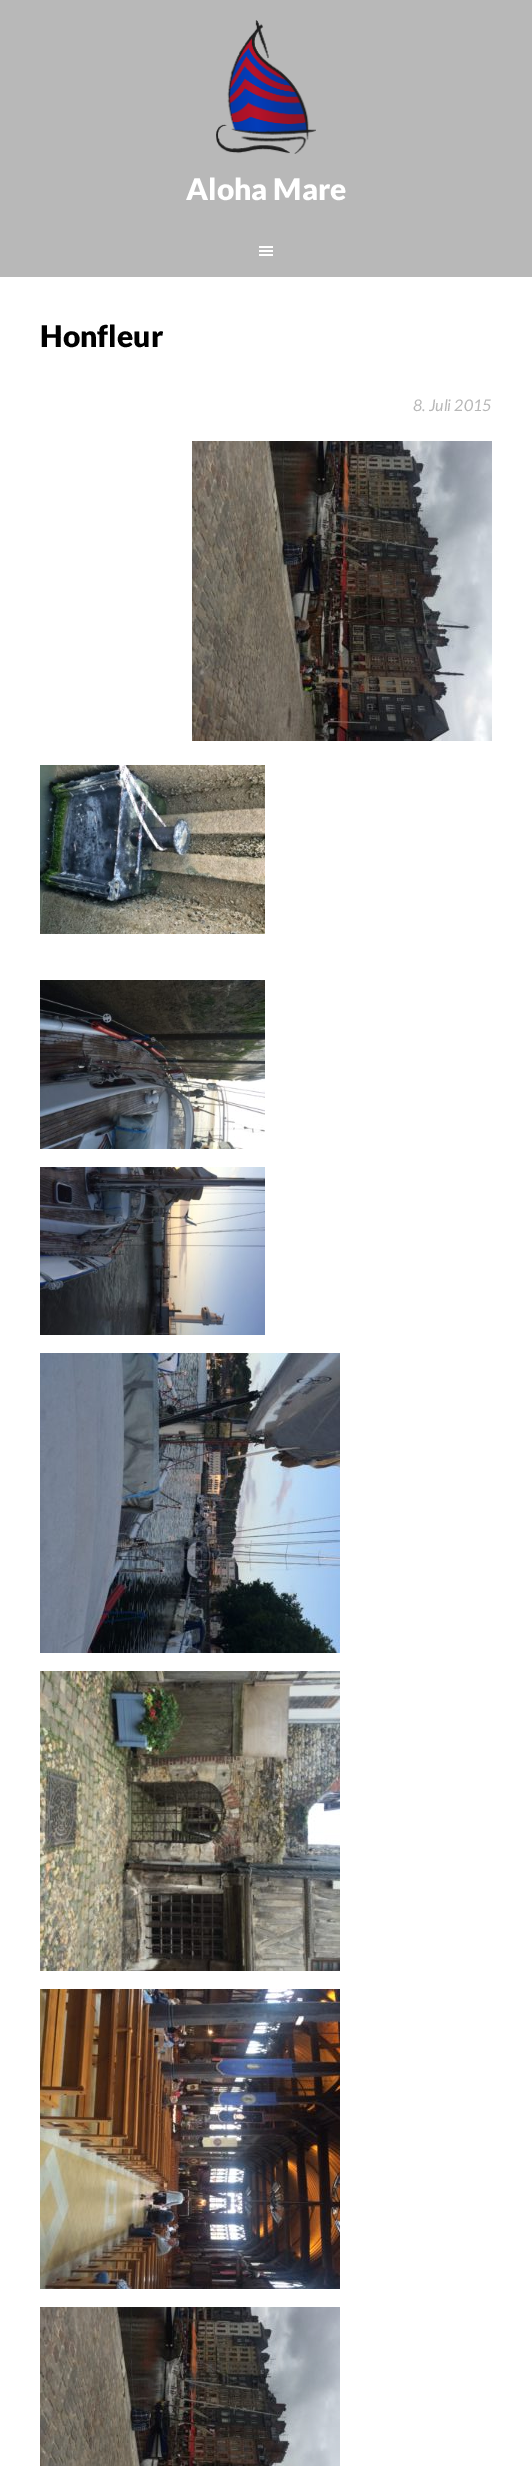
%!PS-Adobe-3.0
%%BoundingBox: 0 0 532 2466
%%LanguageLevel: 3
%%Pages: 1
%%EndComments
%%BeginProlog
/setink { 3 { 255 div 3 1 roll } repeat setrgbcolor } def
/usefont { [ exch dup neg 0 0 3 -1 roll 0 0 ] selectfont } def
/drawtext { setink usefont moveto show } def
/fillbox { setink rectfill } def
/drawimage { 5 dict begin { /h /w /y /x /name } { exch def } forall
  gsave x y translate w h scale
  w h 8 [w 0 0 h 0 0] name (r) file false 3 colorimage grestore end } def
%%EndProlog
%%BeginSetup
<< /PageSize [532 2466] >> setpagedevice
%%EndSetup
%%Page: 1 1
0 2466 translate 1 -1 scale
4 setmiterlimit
0 0 532 2466 255 255 255 fillbox
0 0 532 277 184 184 184 fillbox
(assets/img1.rgb) 216 20 100 134 drawimage
(Aloha Mare) 186 200 /Lato-Black 30 255 255 255 drawtext
(assets/img2.rgb) 259 246 14 10 drawimage
(Honfleur) 40 347 /Lato-Black 30 0 0 0 drawtext
(8. Juli 2015) 413 411 /Lato-Italic 16 184 184 184 drawtext
(assets/img3.rgb) 192 441 300 300 drawimage
(assets/img4.rgb) 40 765 225 169 drawimage
(assets/img5.rgb) 40 980 225 169 drawimage
(assets/img6.rgb) 40 1167 225 168 drawimage
(assets/img7.rgb) 40 1353 300 300 drawimage
(assets/img8.rgb) 40 1671 300 300 drawimage
(assets/img9.rgb) 40 1989 300 300 drawimage
(assets/img10.rgb) 40 2307 300 159 drawimage
showpage
%%EOF
